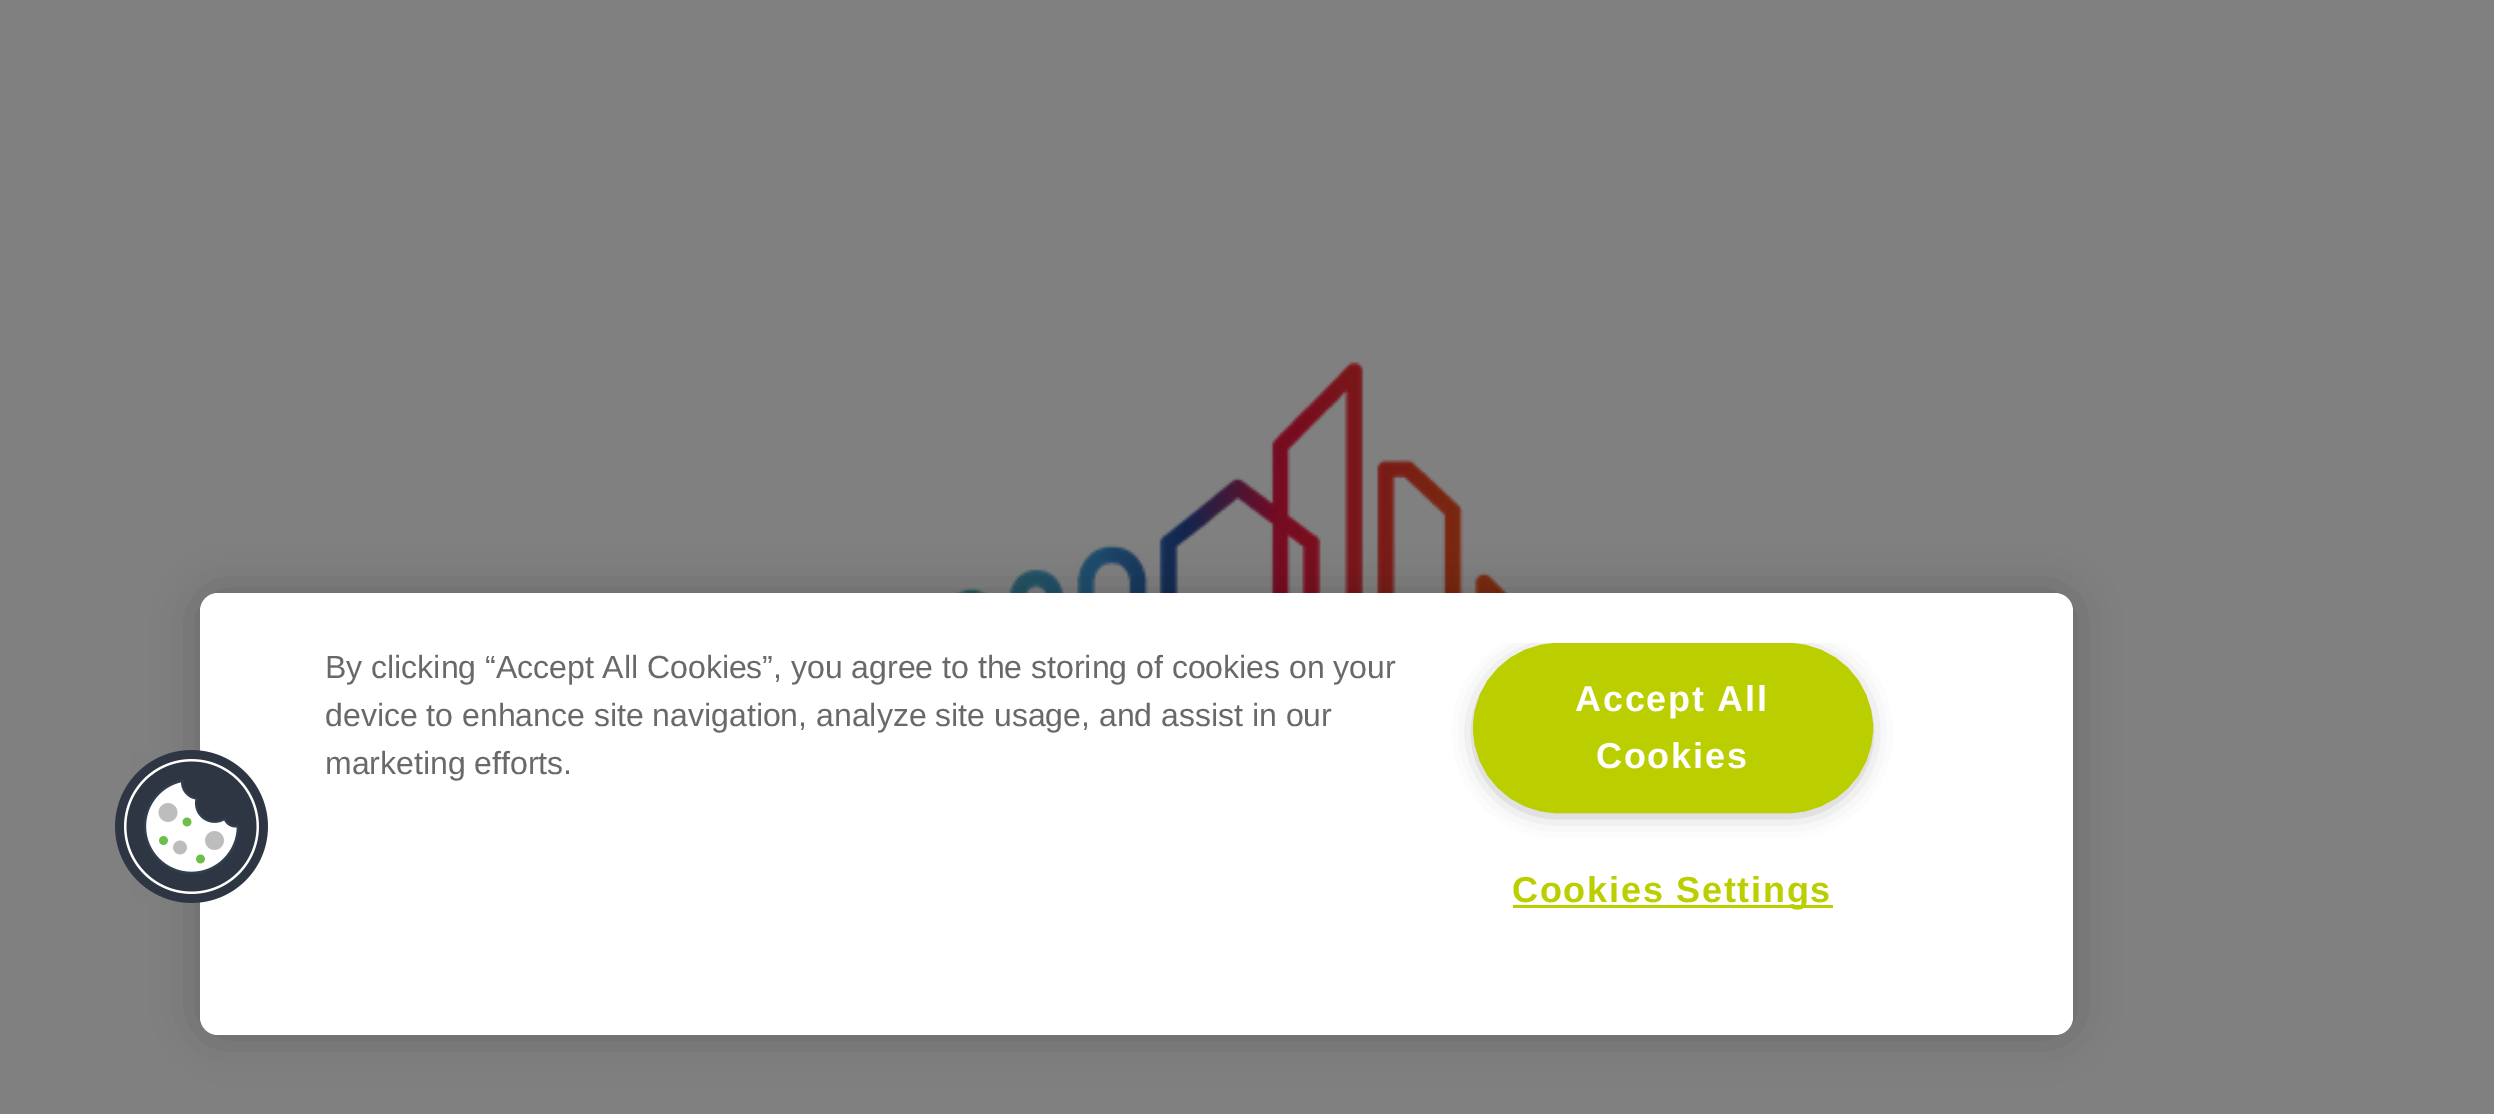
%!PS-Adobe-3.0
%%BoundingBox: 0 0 2494 1114
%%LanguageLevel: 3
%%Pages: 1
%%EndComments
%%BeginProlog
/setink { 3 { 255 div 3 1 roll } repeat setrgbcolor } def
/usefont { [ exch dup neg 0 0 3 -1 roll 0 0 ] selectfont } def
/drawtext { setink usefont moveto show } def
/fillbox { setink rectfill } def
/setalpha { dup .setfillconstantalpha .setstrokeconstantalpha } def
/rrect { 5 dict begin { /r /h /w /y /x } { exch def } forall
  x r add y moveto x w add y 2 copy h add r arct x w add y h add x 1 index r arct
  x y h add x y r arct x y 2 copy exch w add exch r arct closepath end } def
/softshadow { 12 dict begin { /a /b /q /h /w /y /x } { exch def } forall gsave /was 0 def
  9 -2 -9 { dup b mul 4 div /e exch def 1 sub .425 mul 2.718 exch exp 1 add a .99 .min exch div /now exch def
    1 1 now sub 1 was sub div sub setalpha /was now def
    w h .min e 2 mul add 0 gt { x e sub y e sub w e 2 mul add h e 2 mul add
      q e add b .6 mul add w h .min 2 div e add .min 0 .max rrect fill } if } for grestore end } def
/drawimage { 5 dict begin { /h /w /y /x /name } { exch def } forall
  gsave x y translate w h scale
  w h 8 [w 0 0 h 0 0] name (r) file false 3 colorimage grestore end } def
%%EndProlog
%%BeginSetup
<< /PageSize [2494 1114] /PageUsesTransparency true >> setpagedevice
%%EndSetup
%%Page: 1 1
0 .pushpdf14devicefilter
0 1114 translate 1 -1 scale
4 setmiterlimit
0 0 2494 1114 128 128 128 fillbox
(assets/img1.rgb) 955 361 554 232 drawimage
0 0 0 setink
200 593 1873 442 18 22.5 0.2 softshadow
255 255 255 setink
200 593 1873 442 18 rrect fill
(assets/img2.rgb) 115 750 153 153 drawimage
(By clicking “Accept All Cookies”, you agree to the storing of cookies on your) 325 678 /LiberationSans-Regular 32 105 105 105 drawtext
(device to enhance site navigation, analyze site usage, and assist in our) 325 726 /LiberationSans-Regular 32 105 105 105 drawtext
(marketing efforts.) 325 774 /LiberationSans-Regular 32 105 105 105 drawtext
gsave
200 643 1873 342 rectclip
153 153 153 setink
1480 655 385 155 77.5 12.5 1 softshadow
grestore
187 206 0 setink
1474.5 644.5 397 167 83.5 rrect gsave fill grestore
3 setlinewidth
stroke
/LiberationSans-Bold 36 usefont
255 255 255 setink
1575 711 moveto 1.75 0 (Accept All) ashow
1596 768 moveto 1.75 0 (Cookies) ashow
1513 905 320 3 187 206 0 fillbox
1512 902 moveto 1.75 0 (Cookies Settings) ashow
.poppdf14devicefilter showpage
%%EOF
